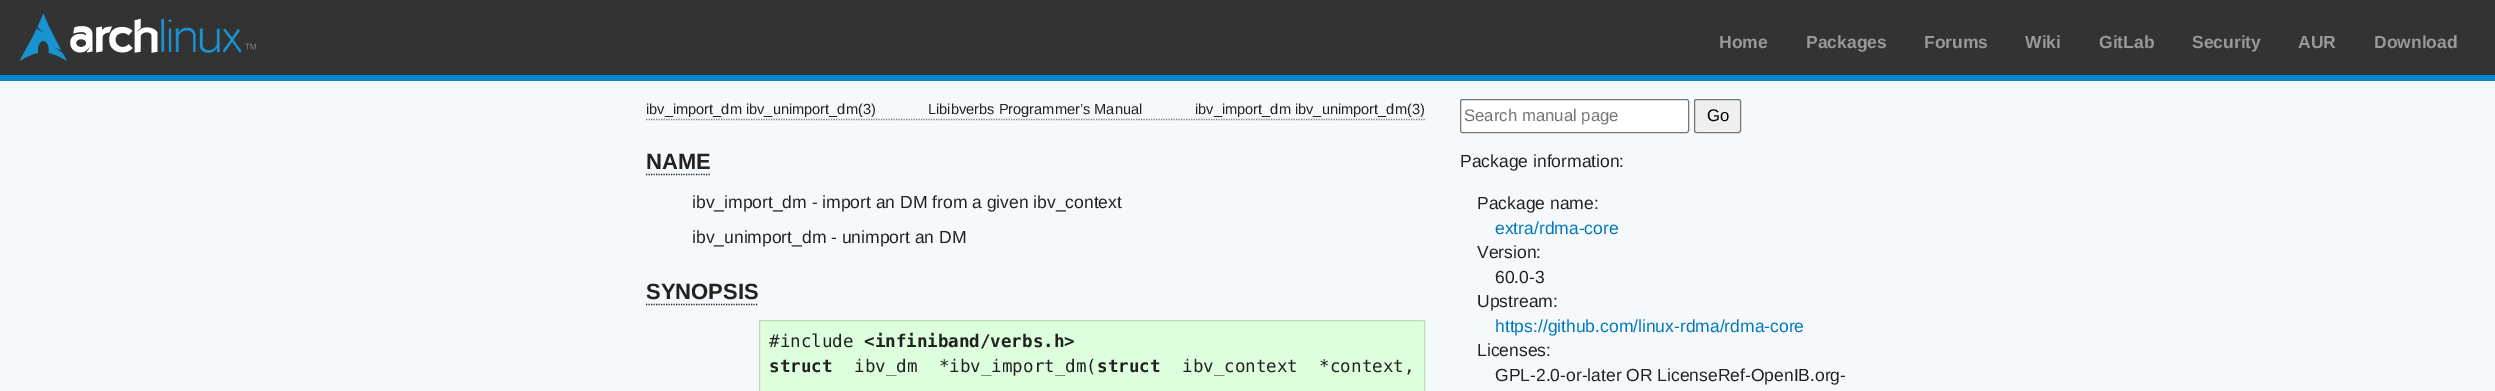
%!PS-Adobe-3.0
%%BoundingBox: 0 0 2495 391
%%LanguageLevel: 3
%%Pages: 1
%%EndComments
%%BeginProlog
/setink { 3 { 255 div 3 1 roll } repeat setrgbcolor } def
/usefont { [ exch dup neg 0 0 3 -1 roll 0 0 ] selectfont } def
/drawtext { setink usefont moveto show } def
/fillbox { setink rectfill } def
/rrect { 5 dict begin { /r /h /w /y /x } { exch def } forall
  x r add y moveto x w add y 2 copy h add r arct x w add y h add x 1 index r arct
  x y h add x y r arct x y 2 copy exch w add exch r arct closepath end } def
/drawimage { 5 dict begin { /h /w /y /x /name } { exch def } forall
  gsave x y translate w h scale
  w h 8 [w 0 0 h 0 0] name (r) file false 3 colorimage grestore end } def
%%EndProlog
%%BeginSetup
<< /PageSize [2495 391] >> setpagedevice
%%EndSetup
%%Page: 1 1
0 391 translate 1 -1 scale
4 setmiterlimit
0 0 2495 391 246 249 252 fillbox
0 0 2495 75 51 51 51 fillbox
0 75 2495 6 0 136 204 fillbox
(assets/img1.rgb) 19 13 237 48 drawimage
(Home) 1719 48 /LiberationSans-Bold 17.5 153 153 153 drawtext
(Packages) 1806 48 /LiberationSans-Bold 17.5 153 153 153 drawtext
(Forums) 1924 48 /LiberationSans-Bold 17.5 153 153 153 drawtext
(Wiki) 2025 48 /LiberationSans-Bold 17.5 153 153 153 drawtext
(GitLab) 2099 48 /LiberationSans-Bold 17.5 153 153 153 drawtext
(Security) 2192 48 /LiberationSans-Bold 17.5 153 153 153 drawtext
(AUR) 2298 48 /LiberationSans-Bold 17.5 153 153 153 drawtext
(Download) 2374 48 /LiberationSans-Bold 17.5 153 153 153 drawtext
128 128 128 setink
1.2 setlinewidth
[1.25 1.25] 0 setdash
646 119.5 moveto 1425 119.5 lineto stroke
(ibv_import_dm ibv_unimport_dm\(3\)) 646 114 /LiberationSans-Regular 14.6 34 34 34 drawtext
(Libibverbs Programmer’s Manual) 928 114 /LiberationSans-Regular 14.6 34 34 34 drawtext
(ibv_import_dm ibv_unimport_dm\(3\)) 1195 114 /LiberationSans-Regular 14.6 34 34 34 drawtext
(NAME) 646 169 /LiberationSans-Bold 22 34 34 34 drawtext
646 174.5 moveto 710 174.5 lineto stroke
(ibv_import_dm - import an DM from a given ibv_context) 692 208 /LiberationSans-Regular 17.5 34 34 34 drawtext
(ibv_unimport_dm - unimport an DM) 692 243 /LiberationSans-Regular 17.5 34 34 34 drawtext
(SYNOPSIS) 646 299 /LiberationSans-Bold 22 34 34 34 drawtext
646 304.5 moveto 757.5 304.5 lineto stroke
221 255 221 setink
759.5 320.5 moveto 1424.5 320.5 lineto 1424.5 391.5 lineto 759.5 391.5 lineto closepath gsave fill grestore
187 221 187 setink
1 setlinewidth
[] 0 setdash
stroke
(#include) 769 347 /DejaVuSansMono-Regular 17.5 34 34 34 drawtext
(<infiniband/verbs.h>) 864 347 /DejaVuSansMono-Bold 17.5 34 34 34 drawtext
(struct) 769 372 /DejaVuSansMono-Bold 17.5 34 34 34 drawtext
/DejaVuSansMono-Regular 17.5 usefont
854 372 moveto 11 0 32 (ibv_dm *ibv_import_dm\() widthshow
(struct) 1097 372 /DejaVuSansMono-Bold 17.5 34 34 34 drawtext
/DejaVuSansMono-Regular 17.5 usefont
1182 372 moveto 11 0 32 (ibv_context *context,) widthshow
255 255 255 setink
1460.5 99.5 228 33 2 rrect gsave fill grestore
118 118 118 setink
stroke
(Search manual page) 1464 121 /LiberationSans-Regular 16.75 117 117 117 drawtext
239 239 239 setink
1694.5 99.5 46 33 2 rrect gsave fill grestore
118 118 118 setink
stroke
(Go) 1707 121 /LiberationSans-Regular 16.75 0 0 0 drawtext
(Package information:) 1460 167 /LiberationSans-Regular 17.5 34 34 34 drawtext
(Package name:) 1477 209 /LiberationSans-Regular 17.5 34 34 34 drawtext
(extra/rdma-core) 1495 234 /LiberationSans-Regular 17.5 0 119 187 drawtext
(Version:) 1477 258 /LiberationSans-Regular 17.5 34 34 34 drawtext
(60.0-3) 1495 283 /LiberationSans-Regular 17.5 34 34 34 drawtext
(Upstream:) 1477 307 /LiberationSans-Regular 17.5 34 34 34 drawtext
(https://github.com/linux-rdma/rdma-core) 1495 332 /LiberationSans-Regular 17.5 0 119 187 drawtext
(Licenses:) 1477 356 /LiberationSans-Regular 17.5 34 34 34 drawtext
(GPL-2.0-or-later OR LicenseRef-OpenIB.org-) 1495 381 /LiberationSans-Regular 17.5 34 34 34 drawtext
showpage
%%EOF
